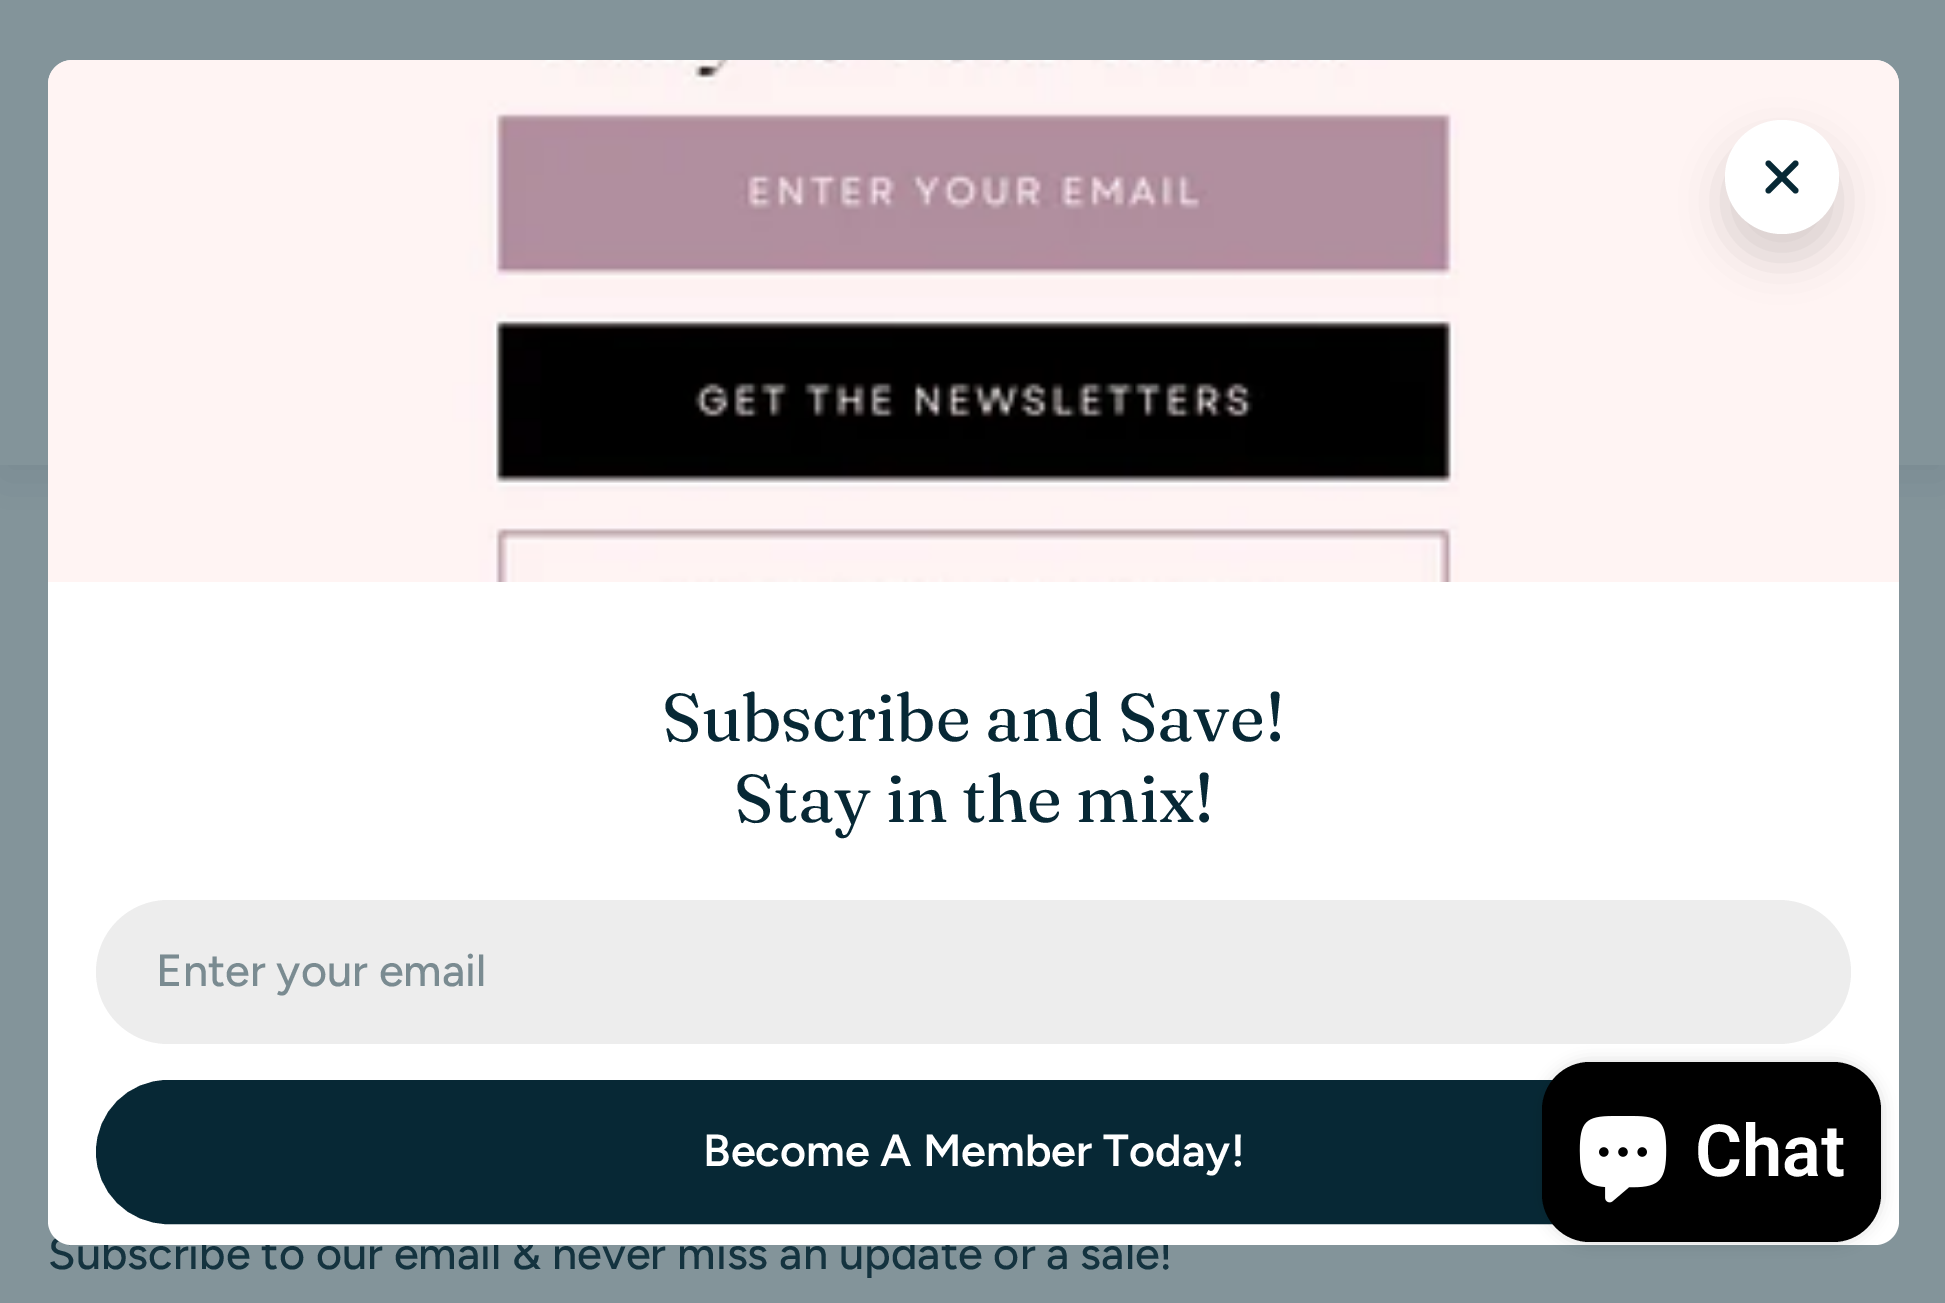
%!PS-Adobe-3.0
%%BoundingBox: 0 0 1945 1303
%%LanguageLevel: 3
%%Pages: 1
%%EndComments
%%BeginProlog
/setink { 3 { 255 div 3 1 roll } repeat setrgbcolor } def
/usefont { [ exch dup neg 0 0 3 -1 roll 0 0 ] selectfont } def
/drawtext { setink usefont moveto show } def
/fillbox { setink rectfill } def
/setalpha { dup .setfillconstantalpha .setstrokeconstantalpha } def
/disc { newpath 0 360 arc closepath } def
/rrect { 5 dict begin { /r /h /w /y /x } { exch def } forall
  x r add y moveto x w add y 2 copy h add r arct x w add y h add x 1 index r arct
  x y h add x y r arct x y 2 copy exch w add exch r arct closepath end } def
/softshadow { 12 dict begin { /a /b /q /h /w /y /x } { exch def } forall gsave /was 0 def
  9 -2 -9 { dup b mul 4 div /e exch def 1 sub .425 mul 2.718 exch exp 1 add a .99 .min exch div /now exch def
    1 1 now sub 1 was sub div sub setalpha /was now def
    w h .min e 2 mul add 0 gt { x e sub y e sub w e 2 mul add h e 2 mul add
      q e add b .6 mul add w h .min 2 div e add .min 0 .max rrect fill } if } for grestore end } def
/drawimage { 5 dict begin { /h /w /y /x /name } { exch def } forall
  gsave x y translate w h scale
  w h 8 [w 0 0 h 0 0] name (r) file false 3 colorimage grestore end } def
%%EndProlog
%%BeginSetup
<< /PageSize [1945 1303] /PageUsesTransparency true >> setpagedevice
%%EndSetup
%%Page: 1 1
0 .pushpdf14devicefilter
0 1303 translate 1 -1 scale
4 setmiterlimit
0 0 1945 1303 131 148 154 fillbox
20 51 63 setink
0 12 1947 465 0 27 0.1 softshadow
0 0 1945 465 131 148 154 fillbox
(Subscribe to our email & never miss an update or a sale!) 48 1269 /Figtree-Medium 45 20 51 63 drawtext
255 255 255 setink
48 60 1851 1185 24 rrect fill
(assets/img1.rgb) 48 60 1851 522 drawimage
0 0 0 setink
1725 144 114 114 57 21 0.15 softshadow
255 255 255 setink
1782 177 57 disc fill
7 40 53 setink
6 setlinewidth
1 setlinecap
1 setlinejoin
1795.5 163.5 moveto 1768.5 190.5 lineto 1795.5 190.5 moveto 1768.5 163.5 lineto stroke
(Subscribe and Save!) 662 741 /Fraunces-Regular 67.25 7 40 53 drawtext
(Stay in the mix!) 734 822 /Fraunces-Regular 67.25 7 40 53 drawtext
237 237 237 setink
96 900 1755 144 72 rrect fill
(Enter your email) 156 986 /Figtree-Medium 45 122 139 145 drawtext
7 40 53 setink
97.5 1081.5 1752 141 70.5 rrect gsave fill grestore
3 setlinewidth
0 setlinecap
0 setlinejoin
stroke
(Become A Member Today!) 703 1166 /Figtree-SemiBold 45 255 255 255 drawtext
0 0 0 setink
1542 1062 339 180 48 7.5 0.15 softshadow
1542 1062 339 180 48 rrect fill
(assets/img2.rgb) 1579 1116 88 87 drawimage
(Chat) 1695 1176 /Roboto-SemiBold 72 255 255 255 drawtext
.poppdf14devicefilter showpage
%%EOF
